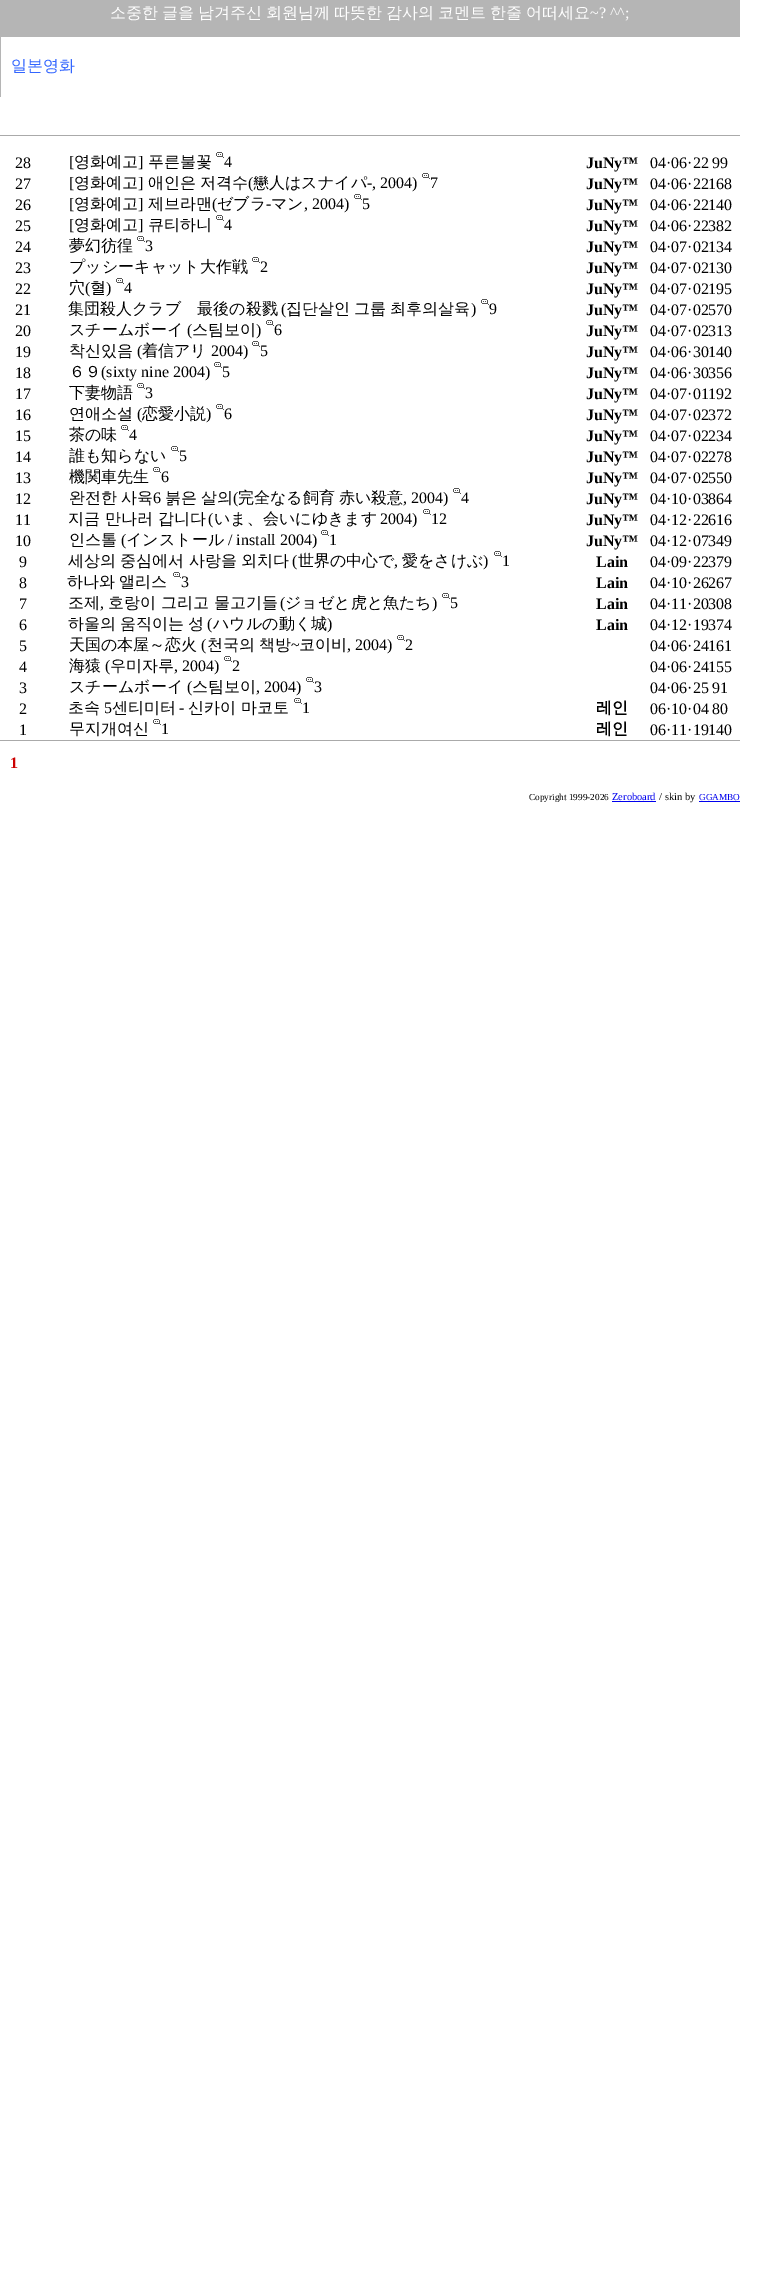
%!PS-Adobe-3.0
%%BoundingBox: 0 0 771 2275
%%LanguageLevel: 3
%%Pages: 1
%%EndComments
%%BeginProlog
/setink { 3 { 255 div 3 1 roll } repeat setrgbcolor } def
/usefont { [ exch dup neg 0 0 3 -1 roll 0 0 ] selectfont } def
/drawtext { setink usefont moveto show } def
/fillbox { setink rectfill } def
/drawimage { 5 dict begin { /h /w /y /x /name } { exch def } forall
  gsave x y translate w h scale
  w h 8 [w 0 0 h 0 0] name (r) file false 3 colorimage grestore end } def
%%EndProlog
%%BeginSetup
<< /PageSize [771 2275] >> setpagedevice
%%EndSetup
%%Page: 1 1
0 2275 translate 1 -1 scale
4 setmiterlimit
0 0 771 2275 255 255 255 fillbox
0 0 740 37 181 181 181 fillbox
(소중한) 110 18 /WenQuanYiZenHei-Medium 16 255 255 255 drawtext
(글을) 162 18 /WenQuanYiZenHei-Medium 16 255 255 255 drawtext
(남겨주신) 198 18 /WenQuanYiZenHei-Medium 16 255 255 255 drawtext
(회원님께) 266 18 /WenQuanYiZenHei-Medium 16 255 255 255 drawtext
(따뜻한) 334 18 /WenQuanYiZenHei-Medium 16 255 255 255 drawtext
(감사의) 386 18 /WenQuanYiZenHei-Medium 16 255 255 255 drawtext
(코멘트) 438 18 /WenQuanYiZenHei-Medium 16 255 255 255 drawtext
(한줄) 490 18 /WenQuanYiZenHei-Medium 16 255 255 255 drawtext
(어떠세요) 526 18 /WenQuanYiZenHei-Medium 16 255 255 255 drawtext
(~? ^^;) 590 18 /LiberationSerif-Regular 16 255 255 255 drawtext
0 37 1 60 181 181 181 fillbox
(일본영화) 11 71 /WenQuanYiZenHei-Medium 16 51 102 255 drawtext
0 135 740 1 170 170 170 fillbox
0 740 740 1 170 170 170 fillbox
(28) 15 168 /LiberationSerif-Regular 16 0 0 0 drawtext
([) 69 167 /LiberationSerif-Regular 16 0 0 0 drawtext
(영화예고) 74 167 /WenQuanYiZenHei-Medium 16 0 0 0 drawtext
(]) 138 167 /LiberationSerif-Regular 16 0 0 0 drawtext
(푸른불꽃) 148 167 /WenQuanYiZenHei-Medium 16 0 0 0 drawtext
(assets/img1.rgb) 216 152 8 6 drawimage
(4) 224 167 /LiberationSerif-Regular 16 0 0 0 drawtext
(JuNy™) 586 168 /LiberationSerif-Bold 16 0 0 0 drawtext
(04·06·22) 650 168 /LiberationSerif-Regular 16 0 0 0 drawtext
(99) 712 168 /LiberationSerif-Regular 16 0 0 0 drawtext
(27) 15 189 /LiberationSerif-Regular 16 0 0 0 drawtext
([) 69 188 /LiberationSerif-Regular 16 0 0 0 drawtext
(영화예고) 74 188 /WenQuanYiZenHei-Medium 16 0 0 0 drawtext
(]) 138 188 /LiberationSerif-Regular 16 0 0 0 drawtext
(애인은) 148 188 /WenQuanYiZenHei-Medium 16 0 0 0 drawtext
(저격수) 200 188 /WenQuanYiZenHei-Medium 16 0 0 0 drawtext
(\() 248 188 /LiberationSerif-Regular 16 0 0 0 drawtext
(戀人はスナイパ) 253 188 /WenQuanYiZenHei-Medium 16 0 0 0 drawtext
(-, 2004\)) 367 188 /LiberationSerif-Regular 16 0 0 0 drawtext
(assets/img1.rgb) 422 173 8 6 drawimage
(7) 430 188 /LiberationSerif-Regular 16 0 0 0 drawtext
(JuNy™) 586 189 /LiberationSerif-Bold 16 0 0 0 drawtext
(04·06·22) 650 189 /LiberationSerif-Regular 16 0 0 0 drawtext
(168) 708 189 /LiberationSerif-Regular 16 0 0 0 drawtext
(26) 15 210 /LiberationSerif-Regular 16 0 0 0 drawtext
([) 69 209 /LiberationSerif-Regular 16 0 0 0 drawtext
(영화예고) 74 209 /WenQuanYiZenHei-Medium 16 0 0 0 drawtext
(]) 138 209 /LiberationSerif-Regular 16 0 0 0 drawtext
(제브라맨) 148 209 /WenQuanYiZenHei-Medium 16 0 0 0 drawtext
(\() 212 209 /LiberationSerif-Regular 16 0 0 0 drawtext
(ゼブラ) 217 209 /WenQuanYiZenHei-Medium 16 0 0 0 drawtext
(-) 266 209 /LiberationSerif-Regular 16 0 0 0 drawtext
(マン) 271 209 /WenQuanYiZenHei-Medium 16 0 0 0 drawtext
(, 2004\)) 304 209 /LiberationSerif-Regular 16 0 0 0 drawtext
(assets/img1.rgb) 354 194 8 6 drawimage
(5) 362 209 /LiberationSerif-Regular 16 0 0 0 drawtext
(JuNy™) 586 210 /LiberationSerif-Bold 16 0 0 0 drawtext
(04·06·22) 650 210 /LiberationSerif-Regular 16 0 0 0 drawtext
(140) 708 210 /LiberationSerif-Regular 16 0 0 0 drawtext
(25) 15 231 /LiberationSerif-Regular 16 0 0 0 drawtext
([) 69 230 /LiberationSerif-Regular 16 0 0 0 drawtext
(영화예고) 74 230 /WenQuanYiZenHei-Medium 16 0 0 0 drawtext
(]) 138 230 /LiberationSerif-Regular 16 0 0 0 drawtext
(큐티하니) 148 230 /WenQuanYiZenHei-Medium 16 0 0 0 drawtext
(assets/img1.rgb) 216 215 8 6 drawimage
(4) 224 230 /LiberationSerif-Regular 16 0 0 0 drawtext
(JuNy™) 586 231 /LiberationSerif-Bold 16 0 0 0 drawtext
(04·06·22) 650 231 /LiberationSerif-Regular 16 0 0 0 drawtext
(382) 708 231 /LiberationSerif-Regular 16 0 0 0 drawtext
(24) 15 252 /LiberationSerif-Regular 16 0 0 0 drawtext
(夢幻彷徨) 69 251 /WenQuanYiZenHei-Medium 16 0 0 0 drawtext
(assets/img1.rgb) 137 236 8 6 drawimage
(3) 145 251 /LiberationSerif-Regular 16 0 0 0 drawtext
(JuNy™) 586 252 /LiberationSerif-Bold 16 0 0 0 drawtext
(04·07·02) 650 252 /LiberationSerif-Regular 16 0 0 0 drawtext
(134) 708 252 /LiberationSerif-Regular 16 0 0 0 drawtext
(23) 15 273 /LiberationSerif-Regular 16 0 0 0 drawtext
(プッシーキャット大作戦) 69 272 /WenQuanYiZenHei-Medium 16 0 0 0 drawtext
(assets/img1.rgb) 252 257 8 6 drawimage
(2) 260 272 /LiberationSerif-Regular 16 0 0 0 drawtext
(JuNy™) 586 273 /LiberationSerif-Bold 16 0 0 0 drawtext
(04·07·02) 650 273 /LiberationSerif-Regular 16 0 0 0 drawtext
(130) 708 273 /LiberationSerif-Regular 16 0 0 0 drawtext
(22) 15 294 /LiberationSerif-Regular 16 0 0 0 drawtext
(穴) 69 293 /WenQuanYiZenHei-Medium 16 0 0 0 drawtext
(\() 85 293 /LiberationSerif-Regular 16 0 0 0 drawtext
(혈) 90 293 /WenQuanYiZenHei-Medium 16 0 0 0 drawtext
(\)) 106 293 /LiberationSerif-Regular 16 0 0 0 drawtext
(assets/img1.rgb) 116 278 8 6 drawimage
(4) 124 293 /LiberationSerif-Regular 16 0 0 0 drawtext
(JuNy™) 586 294 /LiberationSerif-Bold 16 0 0 0 drawtext
(04·07·02) 650 294 /LiberationSerif-Regular 16 0 0 0 drawtext
(195) 708 294 /LiberationSerif-Regular 16 0 0 0 drawtext
(21) 15 315 /LiberationSerif-Regular 16 0 0 0 drawtext
(集団殺人クラブ　最後の殺戮) 68 314 /WenQuanYiZenHei-Medium 16 0 0 0 drawtext
(\() 281 314 /LiberationSerif-Regular 16 0 0 0 drawtext
/WenQuanYiZenHei-Medium 16 usefont
286 314 moveto -1 0 32 (집단살인 그룹 최후의살육) widthshow
(\)) 471 314 /LiberationSerif-Regular 16 0 0 0 drawtext
(assets/img1.rgb) 481 299 8 6 drawimage
(9) 489 314 /LiberationSerif-Regular 16 0 0 0 drawtext
(JuNy™) 586 315 /LiberationSerif-Bold 16 0 0 0 drawtext
(04·07·02) 650 315 /LiberationSerif-Regular 16 0 0 0 drawtext
(570) 708 315 /LiberationSerif-Regular 16 0 0 0 drawtext
(20) 15 336 /LiberationSerif-Regular 16 0 0 0 drawtext
(スチームボーイ) 69 335 /WenQuanYiZenHei-Medium 16 0 0 0 drawtext
(\() 187 335 /LiberationSerif-Regular 16 0 0 0 drawtext
(스팀보이) 192 335 /WenQuanYiZenHei-Medium 16 0 0 0 drawtext
(\)) 256 335 /LiberationSerif-Regular 16 0 0 0 drawtext
(assets/img1.rgb) 266 320 8 6 drawimage
(6) 274 335 /LiberationSerif-Regular 16 0 0 0 drawtext
(JuNy™) 586 336 /LiberationSerif-Bold 16 0 0 0 drawtext
(04·07·02) 650 336 /LiberationSerif-Regular 16 0 0 0 drawtext
(313) 708 336 /LiberationSerif-Regular 16 0 0 0 drawtext
(19) 15 357 /LiberationSerif-Regular 16 0 0 0 drawtext
(착신있음) 69 356 /WenQuanYiZenHei-Medium 16 0 0 0 drawtext
(\() 137 356 /LiberationSerif-Regular 16 0 0 0 drawtext
(着信アリ) 142 356 /WenQuanYiZenHei-Medium 16 0 0 0 drawtext
(2004\)) 211 356 /LiberationSerif-Regular 16 0 0 0 drawtext
(assets/img1.rgb) 252 341 8 6 drawimage
(5) 260 356 /LiberationSerif-Regular 16 0 0 0 drawtext
(JuNy™) 586 357 /LiberationSerif-Bold 16 0 0 0 drawtext
(04·06·30) 650 357 /LiberationSerif-Regular 16 0 0 0 drawtext
(140) 708 357 /LiberationSerif-Regular 16 0 0 0 drawtext
(18) 15 378 /LiberationSerif-Regular 16 0 0 0 drawtext
(６９) 69 377 /WenQuanYiZenHei-Medium 16 0 0 0 drawtext
(\(sixty nine 2004\)) 101 377 /LiberationSerif-Regular 16 0 0 0 drawtext
(assets/img1.rgb) 214 362 8 6 drawimage
(5) 222 377 /LiberationSerif-Regular 16 0 0 0 drawtext
(JuNy™) 586 378 /LiberationSerif-Bold 16 0 0 0 drawtext
(04·06·30) 650 378 /LiberationSerif-Regular 16 0 0 0 drawtext
(356) 708 378 /LiberationSerif-Regular 16 0 0 0 drawtext
(17) 15 399 /LiberationSerif-Regular 16 0 0 0 drawtext
(下妻物語) 69 398 /WenQuanYiZenHei-Medium 16 0 0 0 drawtext
(assets/img1.rgb) 137 383 8 6 drawimage
(3) 145 398 /LiberationSerif-Regular 16 0 0 0 drawtext
(JuNy™) 586 399 /LiberationSerif-Bold 16 0 0 0 drawtext
(04·07·01) 650 399 /LiberationSerif-Regular 16 0 0 0 drawtext
(192) 708 399 /LiberationSerif-Regular 16 0 0 0 drawtext
(16) 15 420 /LiberationSerif-Regular 16 0 0 0 drawtext
(연애소설) 69 419 /WenQuanYiZenHei-Medium 16 0 0 0 drawtext
(\() 137 419 /LiberationSerif-Regular 16 0 0 0 drawtext
(恋愛小説) 142 419 /WenQuanYiZenHei-Medium 16 0 0 0 drawtext
(\)) 206 419 /LiberationSerif-Regular 16 0 0 0 drawtext
(assets/img1.rgb) 216 404 8 6 drawimage
(6) 224 419 /LiberationSerif-Regular 16 0 0 0 drawtext
(JuNy™) 586 420 /LiberationSerif-Bold 16 0 0 0 drawtext
(04·07·02) 650 420 /LiberationSerif-Regular 16 0 0 0 drawtext
(372) 708 420 /LiberationSerif-Regular 16 0 0 0 drawtext
(15) 15 441 /LiberationSerif-Regular 16 0 0 0 drawtext
(茶の味) 69 440 /WenQuanYiZenHei-Medium 16 0 0 0 drawtext
(assets/img1.rgb) 121 425 8 6 drawimage
(4) 129 440 /LiberationSerif-Regular 16 0 0 0 drawtext
(JuNy™) 586 441 /LiberationSerif-Bold 16 0 0 0 drawtext
(04·07·02) 650 441 /LiberationSerif-Regular 16 0 0 0 drawtext
(234) 708 441 /LiberationSerif-Regular 16 0 0 0 drawtext
(14) 15 462 /LiberationSerif-Regular 16 0 0 0 drawtext
(誰も知らない) 69 461 /WenQuanYiZenHei-Medium 16 0 0 0 drawtext
(assets/img1.rgb) 171 446 8 6 drawimage
(5) 179 461 /LiberationSerif-Regular 16 0 0 0 drawtext
(JuNy™) 586 462 /LiberationSerif-Bold 16 0 0 0 drawtext
(04·07·02) 650 462 /LiberationSerif-Regular 16 0 0 0 drawtext
(278) 708 462 /LiberationSerif-Regular 16 0 0 0 drawtext
(13) 15 483 /LiberationSerif-Regular 16 0 0 0 drawtext
(機関車先生) 69 482 /WenQuanYiZenHei-Medium 16 0 0 0 drawtext
(assets/img1.rgb) 153 467 8 6 drawimage
(6) 161 482 /LiberationSerif-Regular 16 0 0 0 drawtext
(JuNy™) 586 483 /LiberationSerif-Bold 16 0 0 0 drawtext
(04·07·02) 650 483 /LiberationSerif-Regular 16 0 0 0 drawtext
(550) 708 483 /LiberationSerif-Regular 16 0 0 0 drawtext
(12) 15 504 /LiberationSerif-Regular 16 0 0 0 drawtext
(완전한) 69 503 /WenQuanYiZenHei-Medium 16 0 0 0 drawtext
(사육) 121 503 /WenQuanYiZenHei-Medium 16 0 0 0 drawtext
(6) 153 503 /LiberationSerif-Regular 16 0 0 0 drawtext
(붉은) 165 503 /WenQuanYiZenHei-Medium 16 0 0 0 drawtext
(살의) 201 503 /WenQuanYiZenHei-Medium 16 0 0 0 drawtext
(\() 233 503 /LiberationSerif-Regular 16 0 0 0 drawtext
(完全なる飼育) 238 503 /WenQuanYiZenHei-Medium 16 0 0 0 drawtext
(赤い殺意) 339 503 /WenQuanYiZenHei-Medium 16 0 0 0 drawtext
(, 2004\)) 403 503 /LiberationSerif-Regular 16 0 0 0 drawtext
(assets/img1.rgb) 453 488 8 6 drawimage
(4) 461 503 /LiberationSerif-Regular 16 0 0 0 drawtext
(JuNy™) 586 504 /LiberationSerif-Bold 16 0 0 0 drawtext
(04·10·03) 650 504 /LiberationSerif-Regular 16 0 0 0 drawtext
(864) 708 504 /LiberationSerif-Regular 16 0 0 0 drawtext
(11) 15 525 /LiberationSerif-Regular 16 0 0 0 drawtext
(지금 만나러 갑니다) 68 524 /WenQuanYiZenHei-Medium 16 0 0 0 drawtext
(\() 208 524 /LiberationSerif-Regular 16 0 0 0 drawtext
(いま、会いにゆきます) 214 524 /WenQuanYiZenHei-Medium 16 0 0 0 drawtext
(2004\)) 380 524 /LiberationSerif-Regular 16 0 0 0 drawtext
(assets/img1.rgb) 423 509 8 6 drawimage
(12) 431 524 /LiberationSerif-Regular 16 0 0 0 drawtext
(JuNy™) 586 525 /LiberationSerif-Bold 16 0 0 0 drawtext
(04·12·22) 650 525 /LiberationSerif-Regular 16 0 0 0 drawtext
(616) 708 525 /LiberationSerif-Regular 16 0 0 0 drawtext
(10) 15 546 /LiberationSerif-Regular 16 0 0 0 drawtext
(인스톨) 69 545 /WenQuanYiZenHei-Medium 16 0 0 0 drawtext
(\() 121 545 /LiberationSerif-Regular 16 0 0 0 drawtext
(インストール) 126 545 /WenQuanYiZenHei-Medium 16 0 0 0 drawtext
(/ install 2004\)) 228 545 /LiberationSerif-Regular 16 0 0 0 drawtext
(assets/img1.rgb) 321 530 8 6 drawimage
(1) 329 545 /LiberationSerif-Regular 16 0 0 0 drawtext
(JuNy™) 586 546 /LiberationSerif-Bold 16 0 0 0 drawtext
(04·12·07) 650 546 /LiberationSerif-Regular 16 0 0 0 drawtext
(349) 708 546 /LiberationSerif-Regular 16 0 0 0 drawtext
(9) 19 567 /LiberationSerif-Regular 16 0 0 0 drawtext
/WenQuanYiZenHei-Medium 16 usefont
68 566 moveto -0.5 0 32 (세상의 중심에서 사랑을 외치다) widthshow
(\() 292 566 /LiberationSerif-Regular 16 0 0 0 drawtext
(世界の中心で) 298 566 /WenQuanYiZenHei-Medium 16 0 0 0 drawtext
(愛をさけぶ) 402 566 /WenQuanYiZenHei-Medium 16 0 0 0 drawtext
(\)) 483 566 /LiberationSerif-Regular 16 0 0 0 drawtext
(assets/img1.rgb) 494 551 8 6 drawimage
(1) 502 566 /LiberationSerif-Regular 16 0 0 0 drawtext
(,) 394 566 /LiberationSerif-Regular 16 0 0 0 drawtext
(Lain) 596 567 /LiberationSerif-Bold 16 0 0 0 drawtext
(04·09·22) 650 567 /LiberationSerif-Regular 16 0 0 0 drawtext
(379) 708 567 /LiberationSerif-Regular 16 0 0 0 drawtext
(8) 19 588 /LiberationSerif-Regular 16 0 0 0 drawtext
/WenQuanYiZenHei-Medium 16 usefont
67 587 moveto -1 0 32 (하나와 앨리스) widthshow
(assets/img1.rgb) 173 572 8 6 drawimage
(3) 181 587 /LiberationSerif-Regular 16 0 0 0 drawtext
(Lain) 596 588 /LiberationSerif-Bold 16 0 0 0 drawtext
(04·10·26) 650 588 /LiberationSerif-Regular 16 0 0 0 drawtext
(267) 708 588 /LiberationSerif-Regular 16 0 0 0 drawtext
(7) 19 609 /LiberationSerif-Regular 16 0 0 0 drawtext
(조제) 68 608 /WenQuanYiZenHei-Medium 16 0 0 0 drawtext
(,) 100 608 /LiberationSerif-Regular 16 0 0 0 drawtext
(호랑이 그리고 물고기들) 108 608 /WenQuanYiZenHei-Medium 16 0 0 0 drawtext
(\() 280 608 /LiberationSerif-Regular 16 0 0 0 drawtext
(ジョゼと虎と魚たち) 285 608 /WenQuanYiZenHei-Medium 16 0 0 0 drawtext
(\)) 432 608 /LiberationSerif-Regular 16 0 0 0 drawtext
(assets/img1.rgb) 442 593 8 6 drawimage
(5) 450 608 /LiberationSerif-Regular 16 0 0 0 drawtext
(Lain) 596 609 /LiberationSerif-Bold 16 0 0 0 drawtext
(04·11·20) 650 609 /LiberationSerif-Regular 16 0 0 0 drawtext
(308) 708 609 /LiberationSerif-Regular 16 0 0 0 drawtext
(6) 19 630 /LiberationSerif-Regular 16 0 0 0 drawtext
/WenQuanYiZenHei-Medium 16 usefont
68 629 moveto -1 0 32 (하울의 움직이는 성) widthshow
(\() 207 629 /LiberationSerif-Regular 16 0 0 0 drawtext
(ハウルの動く城) 213 629 /WenQuanYiZenHei-Medium 16 0 0 0 drawtext
(\)) 327 629 /LiberationSerif-Regular 16 0 0 0 drawtext
(Lain) 596 630 /LiberationSerif-Bold 16 0 0 0 drawtext
(04·12·19) 650 630 /LiberationSerif-Regular 16 0 0 0 drawtext
(374) 708 630 /LiberationSerif-Regular 16 0 0 0 drawtext
(5) 19 651 /LiberationSerif-Regular 16 0 0 0 drawtext
(天国の本屋～恋火) 69 650 /WenQuanYiZenHei-Medium 16 0 0 0 drawtext
(\() 201 650 /LiberationSerif-Regular 16 0 0 0 drawtext
(천국의) 207 650 /WenQuanYiZenHei-Medium 16 0 0 0 drawtext
(책방) 259 650 /WenQuanYiZenHei-Medium 16 0 0 0 drawtext
(~) 291 650 /LiberationSerif-Regular 16 0 0 0 drawtext
(코이비) 299 650 /WenQuanYiZenHei-Medium 16 0 0 0 drawtext
(, 2004\)) 347 650 /LiberationSerif-Regular 16 0 0 0 drawtext
(assets/img1.rgb) 397 635 8 6 drawimage
(2) 405 650 /LiberationSerif-Regular 16 0 0 0 drawtext
(04·06·24) 650 651 /LiberationSerif-Regular 16 0 0 0 drawtext
(161) 708 651 /LiberationSerif-Regular 16 0 0 0 drawtext
(4) 19 672 /LiberationSerif-Regular 16 0 0 0 drawtext
(海猿) 69 671 /WenQuanYiZenHei-Medium 16 0 0 0 drawtext
(\() 105 671 /LiberationSerif-Regular 16 0 0 0 drawtext
(우미자루) 110 671 /WenQuanYiZenHei-Medium 16 0 0 0 drawtext
(, 2004\)) 174 671 /LiberationSerif-Regular 16 0 0 0 drawtext
(assets/img1.rgb) 224 656 8 6 drawimage
(2) 232 671 /LiberationSerif-Regular 16 0 0 0 drawtext
(04·06·24) 650 672 /LiberationSerif-Regular 16 0 0 0 drawtext
(155) 708 672 /LiberationSerif-Regular 16 0 0 0 drawtext
(3) 19 693 /LiberationSerif-Regular 16 0 0 0 drawtext
(スチームボーイ) 69 692 /WenQuanYiZenHei-Medium 16 0 0 0 drawtext
(\() 187 692 /LiberationSerif-Regular 16 0 0 0 drawtext
(스팀보이) 192 692 /WenQuanYiZenHei-Medium 16 0 0 0 drawtext
(, 2004\)) 256 692 /LiberationSerif-Regular 16 0 0 0 drawtext
(assets/img1.rgb) 306 677 8 6 drawimage
(3) 314 692 /LiberationSerif-Regular 16 0 0 0 drawtext
(04·06·25) 650 693 /LiberationSerif-Regular 16 0 0 0 drawtext
(91) 712 693 /LiberationSerif-Regular 16 0 0 0 drawtext
(2) 19 714 /LiberationSerif-Regular 16 0 0 0 drawtext
(초속) 68 713 /WenQuanYiZenHei-Medium 16 0 0 0 drawtext
(5) 104 713 /LiberationSerif-Regular 16 0 0 0 drawtext
(센티미터) 112 713 /WenQuanYiZenHei-Medium 16 0 0 0 drawtext
(-) 179 713 /LiberationSerif-Regular 16 0 0 0 drawtext
(신카이 마코토) 188 713 /WenQuanYiZenHei-Medium 16 0 0 0 drawtext
(assets/img1.rgb) 294 698 8 6 drawimage
(1) 302 713 /LiberationSerif-Regular 16 0 0 0 drawtext
(레인) 596 713 /WenQuanYiZenHei-Bold 16 0 0 0 drawtext
(06·10·04) 650 714 /LiberationSerif-Regular 16 0 0 0 drawtext
(80) 712 714 /LiberationSerif-Regular 16 0 0 0 drawtext
(1) 19 735 /LiberationSerif-Regular 16 0 0 0 drawtext
(무지개여신) 69 734 /WenQuanYiZenHei-Medium 16 0 0 0 drawtext
(assets/img1.rgb) 153 719 8 6 drawimage
(1) 161 734 /LiberationSerif-Regular 16 0 0 0 drawtext
(레인) 596 734 /WenQuanYiZenHei-Bold 16 0 0 0 drawtext
(06·11·19) 650 735 /LiberationSerif-Regular 16 0 0 0 drawtext
(140) 708 735 /LiberationSerif-Regular 16 0 0 0 drawtext
(1) 10 768 /LiberationSerif-Bold 16 204 0 0 drawtext
(Copyright 1999-2026) 529 800 /LiberationSerif-Regular 9.25 0 0 0 drawtext
(Zeroboard) 612 800 /LiberationSerif-Regular 10.5 0 0 238 drawtext
612 801 44 1 0 0 238 fillbox
(/ skin by) 659 800 /LiberationSerif-Regular 10.5 0 0 0 drawtext
(GGAMBO) 699 800 /LiberationSerif-Regular 9.25 0 0 238 drawtext
699 801 41 1 0 0 238 fillbox
showpage
%%EOF
